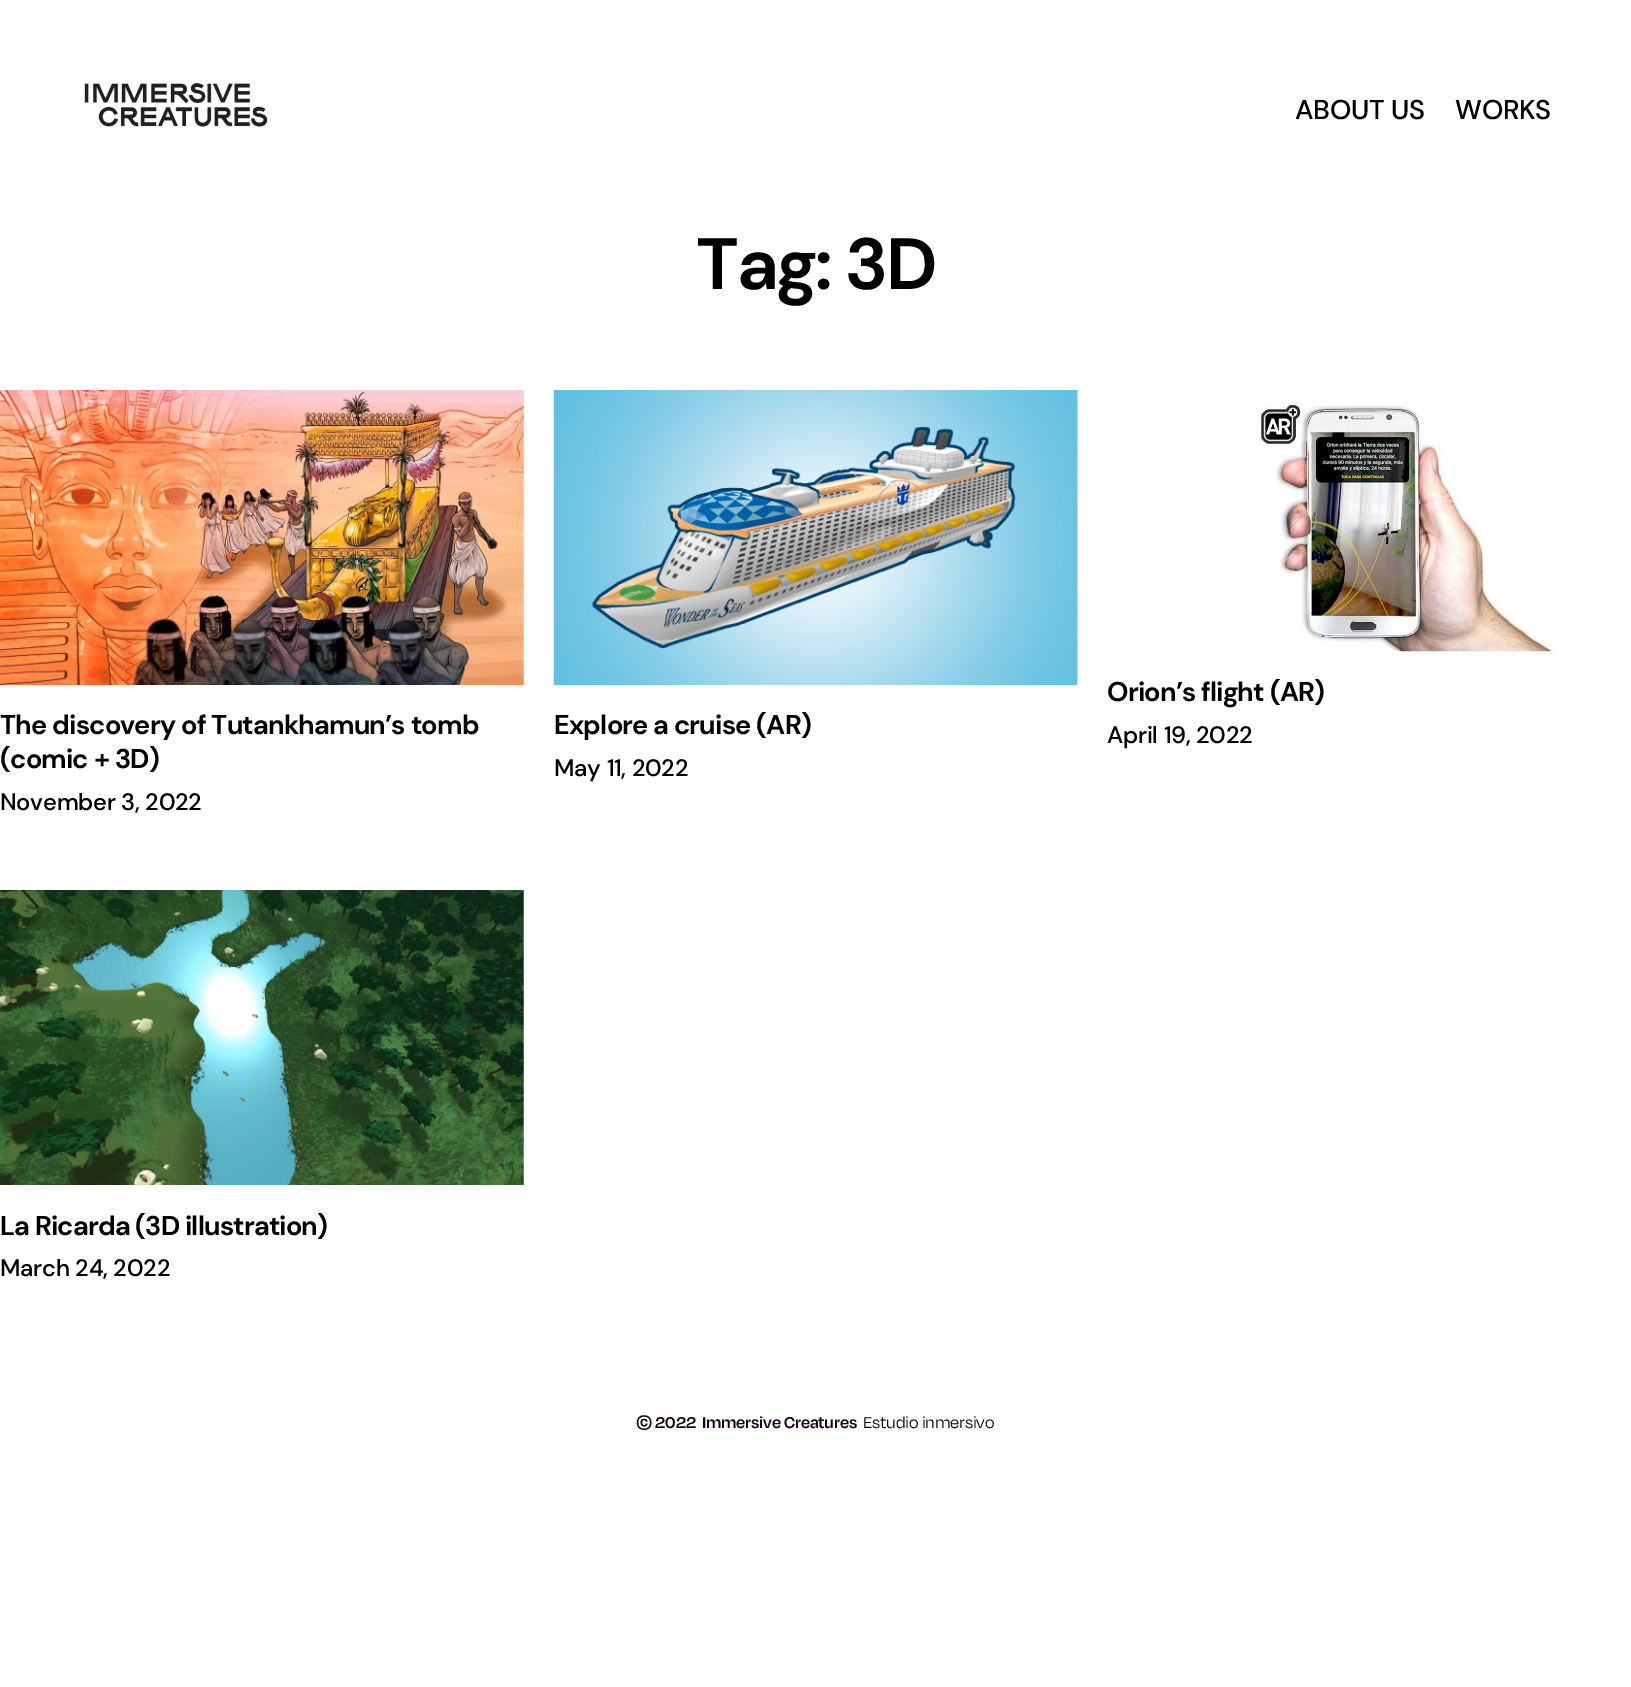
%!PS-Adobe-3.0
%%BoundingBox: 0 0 1631 1687
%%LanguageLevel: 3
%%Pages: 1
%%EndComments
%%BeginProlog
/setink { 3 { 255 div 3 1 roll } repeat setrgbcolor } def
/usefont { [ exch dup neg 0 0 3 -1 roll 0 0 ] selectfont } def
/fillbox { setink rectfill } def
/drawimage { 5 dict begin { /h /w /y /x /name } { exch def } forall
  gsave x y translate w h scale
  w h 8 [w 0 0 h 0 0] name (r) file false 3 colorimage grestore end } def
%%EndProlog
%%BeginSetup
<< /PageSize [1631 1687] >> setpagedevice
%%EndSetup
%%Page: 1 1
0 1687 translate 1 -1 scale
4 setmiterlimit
0 0 1631 1687 255 255 255 fillbox
(assets/img1.rgb) 84 83 184 44 drawimage
/DMSans-Medium 27.2 usefont
0 0 0 setink
1295 119 moveto -0.25 0 (ABOUT US) ashow
1455 119 moveto -0.25 0 (WORKS) ashow
/DMSans-Bold 72.5 usefont
696 289 moveto -2.25 0 (Tag: 3D) ashow
(assets/img2.rgb) 0 390 524 295 drawimage
/DMSans-Bold 27.2 usefont
0 734 moveto -0.8 0 (The discovery of Tutankhamun’s tomb) ashow
0 768 moveto -0.8 0 (\(comic + 3D\)) ashow
/DMSans-Medium 23.75 usefont
0 810 moveto -0.25 0 (November 3, 2022) ashow
(assets/img3.rgb) 553 390 525 295 drawimage
/DMSans-Bold 27.2 usefont
554 734 moveto -0.8 0 (Explore a cruise \(AR\)) ashow
/DMSans-Medium 23.75 usefont
554 776 moveto -0.25 0 (May 11, 2022) ashow
(assets/img4.rgb) 1259 402 296 250 drawimage
/DMSans-Bold 27.2 usefont
1107 701 moveto -0.8 0 (Orion’s flight \(AR\)) ashow
/DMSans-Medium 23.75 usefont
1107 743 moveto -0.25 0 (April 19, 2022) ashow
(assets/img5.rgb) 0 890 524 295 drawimage
/DMSans-Bold 27.2 usefont
0 1235 moveto -0.8 0 (La Ricarda \(3D illustration\)) ashow
/DMSans-Medium 23.75 usefont
0 1276 moveto -0.25 0 (March 24, 2022) ashow
/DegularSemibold-SemiBold 18.1 usefont
22 2 24 setink
636 1428 moveto -0.25 0 (© 2022) ashow
702 1428 moveto -0.25 0 (Immersive Creatures) ashow
/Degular-Regular 18.1 usefont
863 1428 moveto -0.25 0 (Estudio inmersivo) ashow
showpage
%%EOF
